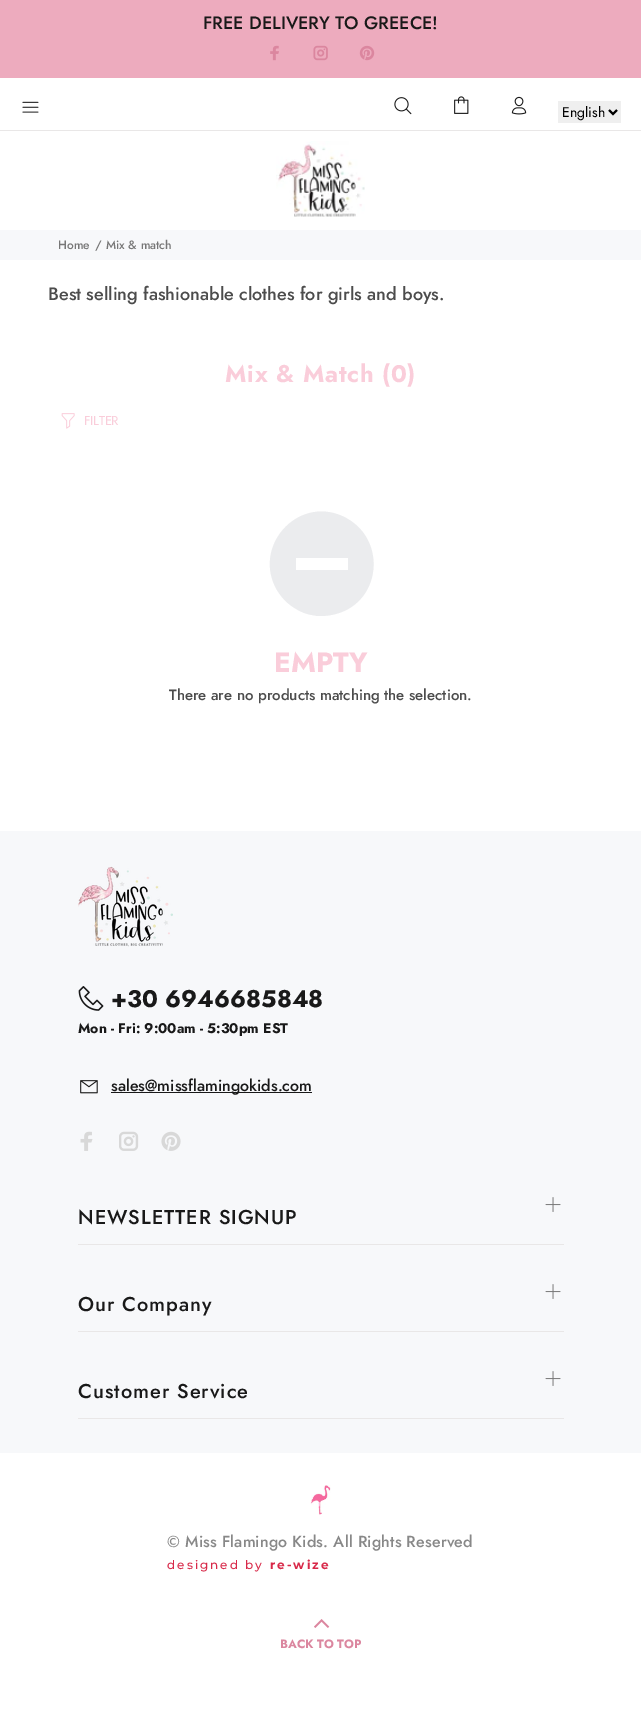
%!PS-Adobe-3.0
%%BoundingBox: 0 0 641 1710
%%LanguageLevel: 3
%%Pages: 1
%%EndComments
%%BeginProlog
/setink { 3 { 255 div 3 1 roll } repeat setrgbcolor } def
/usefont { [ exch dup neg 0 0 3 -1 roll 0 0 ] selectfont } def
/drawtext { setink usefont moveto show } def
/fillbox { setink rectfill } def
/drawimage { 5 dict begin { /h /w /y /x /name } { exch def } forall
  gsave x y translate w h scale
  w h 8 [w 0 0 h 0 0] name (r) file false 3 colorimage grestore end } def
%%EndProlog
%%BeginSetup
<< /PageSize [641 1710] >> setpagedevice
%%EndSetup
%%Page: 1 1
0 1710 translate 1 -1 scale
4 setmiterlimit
0 0 641 1710 255 255 255 fillbox
0 0 641 78 237 171 190 fillbox
(FREE DELIVERY TO GREECE!) 203 29 /Jost-Medium 18 25 25 25 drawtext
(assets/img1.rgb) 270 45 9 16 drawimage
(assets/img2.rgb) 313 45 15 16 drawimage
(assets/img3.rgb) 359 45 16 16 drawimage
(assets/img4.rgb) 22 101 17 12 drawimage
(assets/img5.rgb) 394 97 18 18 drawimage
(assets/img6.rgb) 454 96 15 18 drawimage
(assets/img7.rgb) 511 96 16 19 drawimage
558 101 63 22 239 239 239 fillbox
0 0 0 setink
2 setlinewidth
609 110 moveto 613 114 lineto 617 110 lineto stroke
(English) 562 117 /Jost-Regular 14 0 0 0 drawtext
0 130 641 1 233 231 231 fillbox
(assets/img8.rgb) 276 141 89 76 drawimage
0 230 641 30 247 248 250 fillbox
(Home) 58 249 /Jost-Medium 12 119 119 119 drawtext
(/) 95 249 /Jost-Medium 12 119 119 119 drawtext
(Mix & match) 106 249 /Jost-Medium 12 119 119 119 drawtext
(Best selling fashionable clothes for girls and boys.) 48 300 /Jost-Medium 18 76 76 76 drawtext
/Jost-Bold 24 usefont
250 205 218 setink
225 382 moveto 0.75 0 (Mix & Match \(0\)) ashow
(assets/img9.rgb) 61 413 14 16 drawimage
/Jost-Regular 13 usefont
84 425 moveto -0.25 0 (FILTER) ashow
235 236 238 setink
342 516 moveto 389 537 382 606 331 615 curveto 321 617 311 616 302 612 curveto 291 607 283 600 277 590 curveto 252 547 297 496 342 516 curveto closepath 348 558 moveto 296 558 lineto 296 570 lineto 348 570 lineto closepath fill
(EMPTY) 274 672 /Jost-Bold 28 250 205 218 drawtext
(There are no products matching the selection.) 169 700 /Jost-Medium 15 76 76 76 drawtext
0 831 641 622 247 248 250 fillbox
(assets/img10.rgb) 78 866 95 81 drawimage
(assets/img11.rgb) 78 986 26 25 drawimage
(+30 6946685848) 111 1007 /Jost-Bold 24 25 25 25 drawtext
(Mon - Fri: 9:00am - 5:30pm EST) 78 1033 /Jost-Bold 14 25 25 25 drawtext
(assets/img12.rgb) 80 1080 18 14 drawimage
111 1092 201 1 25 25 25 fillbox
(sales@missflamingokids.com) 111 1091 /Jost-Medium 16 25 25 25 drawtext
(assets/img13.rgb) 80 1131 13 20 drawimage
(assets/img14.rgb) 119 1131 20 20 drawimage
(assets/img15.rgb) 161 1131 20 20 drawimage
78 1244 486 1 233 231 231 fillbox
(assets/img16.rgb) 545 1197 16 15 drawimage
/Jost-Medium 20 usefont
25 25 25 setink
78 1224 moveto 1 0 (NEWSLETTER SIGNUP) ashow
78 1331 486 1 233 231 231 fillbox
(assets/img16.rgb) 545 1284 16 15 drawimage
25 25 25 setink
78 1311 moveto 1 0 (Our Company) ashow
78 1418 486 1 233 231 231 fillbox
(assets/img16.rgb) 545 1371 16 15 drawimage
25 25 25 setink
78 1398 moveto 1 0 (Customer Service) ashow
(assets/img17.rgb) 310 1485 21 30 drawimage
/Jost-Medium 16 usefont
136 136 136 setink
167 1547 moveto 0.15 0 (© Miss Flamingo Kids. All Rights Reserved) ashow
/Montserrat-Medium 12 usefont
216 41 73 setink
167 1569 moveto 2 0 (designed by) ashow
/Montserrat-Bold 12 usefont
270 1569 moveto 2 0 (re-wize) ashow
(assets/img18.rgb) 314 1619 16 9 drawimage
(BACK TO TOP) 280 1648 /Jost-Bold 12 219 134 159 drawtext
showpage
%%EOF
